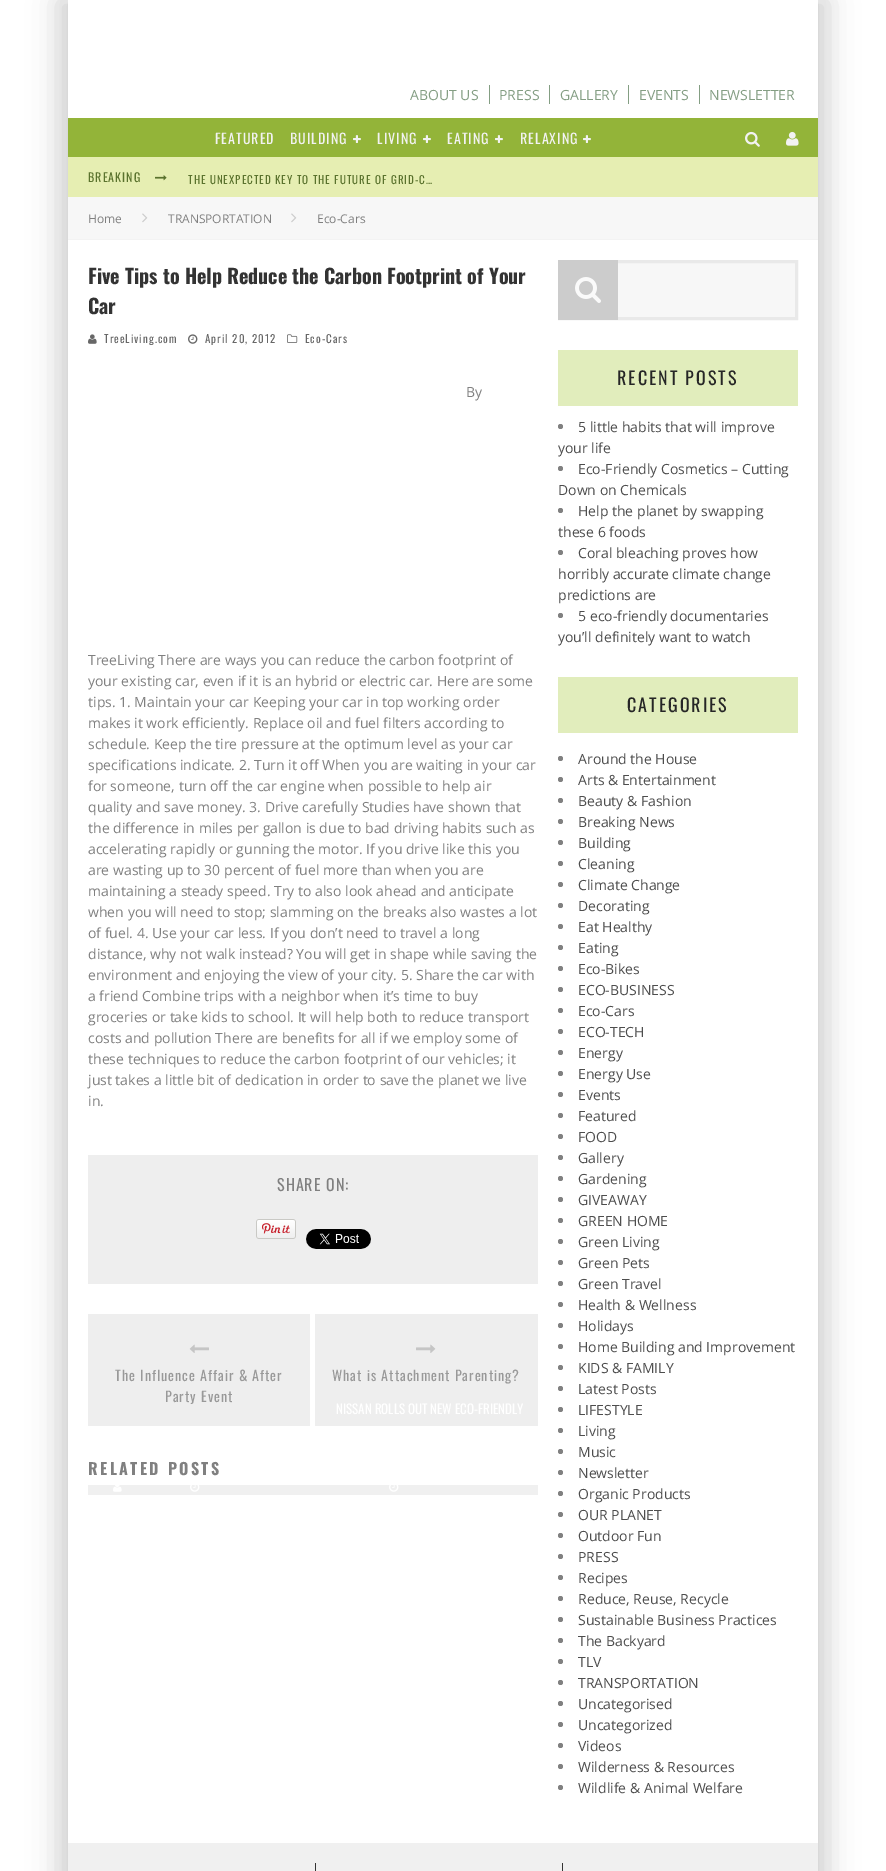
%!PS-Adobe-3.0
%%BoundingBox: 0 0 886 1871
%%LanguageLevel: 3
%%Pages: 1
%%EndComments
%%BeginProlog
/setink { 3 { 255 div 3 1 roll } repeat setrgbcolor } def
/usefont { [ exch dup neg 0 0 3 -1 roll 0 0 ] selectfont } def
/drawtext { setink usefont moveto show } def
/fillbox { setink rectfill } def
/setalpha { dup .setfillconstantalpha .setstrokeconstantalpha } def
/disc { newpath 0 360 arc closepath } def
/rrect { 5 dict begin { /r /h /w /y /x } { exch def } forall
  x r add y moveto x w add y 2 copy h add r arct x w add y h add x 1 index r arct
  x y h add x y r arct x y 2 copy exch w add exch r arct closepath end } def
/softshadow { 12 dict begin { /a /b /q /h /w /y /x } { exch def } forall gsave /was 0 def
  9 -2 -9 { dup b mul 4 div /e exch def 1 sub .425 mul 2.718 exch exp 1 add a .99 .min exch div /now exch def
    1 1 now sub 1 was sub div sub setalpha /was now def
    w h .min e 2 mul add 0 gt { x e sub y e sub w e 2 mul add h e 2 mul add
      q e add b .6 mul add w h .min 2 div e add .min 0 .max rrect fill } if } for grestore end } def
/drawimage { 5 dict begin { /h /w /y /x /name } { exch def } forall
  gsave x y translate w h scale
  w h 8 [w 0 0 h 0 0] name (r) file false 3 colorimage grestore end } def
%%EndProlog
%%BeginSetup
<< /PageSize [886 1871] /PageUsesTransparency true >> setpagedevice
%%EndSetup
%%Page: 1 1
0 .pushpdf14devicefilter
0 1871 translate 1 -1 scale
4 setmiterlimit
0 0 886 1871 255 255 255 fillbox
gsave
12 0 moveto 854 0 lineto 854 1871 lineto 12 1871 lineto closepath 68 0 moveto 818 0 lineto 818 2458 lineto 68 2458 lineto closepath eoclip newpath
0 0 0 setink
58 0 750 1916 0 15 0.15 softshadow
grestore
gsave
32 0 moveto 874 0 lineto 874 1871 lineto 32 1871 lineto closepath 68 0 moveto 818 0 lineto 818 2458 lineto 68 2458 lineto closepath eoclip newpath
0 0 0 setink
78 0 750 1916 0 15 0.15 softshadow
grestore
(ABOUT US) 410 100 /OpenSans-Regular 14 132 158 131 drawtext
489 85 1 19 132 158 131 fillbox
(PRESS) 499 100 /OpenSans-Regular 14 132 158 131 drawtext
549 85 1 19 132 158 131 fillbox
(GALLERY) 560 100 /OpenSans-Regular 14 132 158 131 drawtext
628 85 1 19 132 158 131 fillbox
(EVENTS) 639 100 /OpenSans-Regular 14 132 158 131 drawtext
699 85 1 19 132 158 131 fillbox
(NEWSLETTER) 709 100 /OpenSans-Regular 14 132 158 131 drawtext
68 118 750 39 147 180 57 fillbox
/Oswald-Regular 14 usefont
242 242 242 setink
215 144 moveto 1 0 (FEATURED) ashow
290 144 moveto 1 0 (BUILDING) ashow
(assets/img1.rgb) 353 135 8 8 drawimage
377 144 moveto 1 0 (LIVING) ashow
(assets/img1.rgb) 423 135 8 8 drawimage
447 144 moveto 1 0 (EATING) ashow
(assets/img1.rgb) 495 135 8 8 drawimage
520 144 moveto 1 0 (RELAXING) ashow
(assets/img1.rgb) 583 135 8 8 drawimage
(assets/img2.rgb) 745 131 15 16 drawimage
(assets/img3.rgb) 786 131 13 15 drawimage
68 157 750 40 230 238 178 fillbox
/Oswald-Regular 12 usefont
90 114 45 setink
88 182 moveto 1 0 (BREAKING) ashow
(assets/img4.rgb) 155 175 12 6 drawimage
/Oswald-Regular 11 usefont
188 184 moveto 1 0 (THE UNEXPECTED KEY TO THE FUTURE OF GRID-C…) ashow
68 197 750 42 247 247 247 fillbox
68 239 750 1 243 243 243 fillbox
(Home) 88 223 /OpenSans-Regular 12 128 128 128 drawtext
(assets/img5.rgb) 142 213 6 10 drawimage
(TRANSPORTATION) 168 223 /OpenSans-Regular 12 128 128 128 drawtext
(assets/img5.rgb) 291 213 6 10 drawimage
(Eco-Cars) 317 223 /OpenSans-Regular 12 128 128 128 drawtext
(Five Tips to Help Reduce the Carbon Footprint of Your) 88 284 /Oswald-Bold 20 51 51 51 drawtext
(Car) 88 314 /Oswald-Bold 20 51 51 51 drawtext
(assets/img6.rgb) 88 334 9 10 drawimage
/Oswald-Regular 11 usefont
103 103 103 setink
104 343 moveto 1 0 (TreeLiving.com) ashow
(assets/img7.rgb) 188 334 10 10 drawimage
205 343 moveto 1 0 (April 20, 2012) ashow
(assets/img8.rgb) 287 334 11 9 drawimage
305 343 moveto 1 0 (Eco-Cars) ashow
(By) 466 397 /OpenSans-Regular 14 128 128 128 drawtext
(TreeLiving There are ways you can reduce the carbon footprint of) 88 665 /OpenSans-Regular 14 128 128 128 drawtext
(your existing car, even if it is an hybrid or electric car. Here are some) 88 686 /OpenSans-Regular 14 128 128 128 drawtext
(tips. 1. Maintain your car Keeping your car in top working order) 88 707 /OpenSans-Regular 14 128 128 128 drawtext
(makes it work efficiently. Replace oil and fuel filters according to) 88 728 /OpenSans-Regular 14 128 128 128 drawtext
(schedule. Keep the tire pressure at the optimum level as your car) 88 749 /OpenSans-Regular 14 128 128 128 drawtext
(specifications indicate. 2. Turn it off When you are waiting in your car) 88 770 /OpenSans-Regular 14 128 128 128 drawtext
(for someone, turn off the car engine when possible to help air) 88 791 /OpenSans-Regular 14 128 128 128 drawtext
(quality and save money. 3. Drive carefully Studies have shown that) 88 812 /OpenSans-Regular 14 128 128 128 drawtext
(the difference in miles per gallon is due to bad driving habits such as) 88 833 /OpenSans-Regular 14 128 128 128 drawtext
(accelerating rapidly or gunning the motor. If you drive like this you) 88 854 /OpenSans-Regular 14 128 128 128 drawtext
(are wasting up to 30 percent of fuel more than when you are) 88 875 /OpenSans-Regular 14 128 128 128 drawtext
(maintaining a steady speed. Try to also look ahead and anticipate) 88 896 /OpenSans-Regular 14 128 128 128 drawtext
(when you will need to stop; slamming on the breaks also wastes a lot) 88 917 /OpenSans-Regular 14 128 128 128 drawtext
(of fuel. 4. Use your car less. If you don’t need to travel a long) 88 938 /OpenSans-Regular 14 128 128 128 drawtext
(distance, why not walk instead? You will get in shape while saving the) 88 959 /OpenSans-Regular 14 128 128 128 drawtext
(environment and enjoying the view of your city. 5. Share the car with) 88 980 /OpenSans-Regular 14 128 128 128 drawtext
(a friend Combine trips with a neighbor when it’s time to buy) 88 1001 /OpenSans-Regular 14 128 128 128 drawtext
(groceries or take kids to school. It will help both to reduce transport) 88 1022 /OpenSans-Regular 14 128 128 128 drawtext
(costs and pollution There are benefits for all if we employ some of) 88 1043 /OpenSans-Regular 14 128 128 128 drawtext
(these techniques to reduce the carbon footprint of our vehicles; it) 88 1064 /OpenSans-Regular 14 128 128 128 drawtext
(just takes a little bit of dedication in order to save the planet we live) 88 1085 /OpenSans-Regular 14 128 128 128 drawtext
(in.) 88 1106 /OpenSans-Regular 14 128 128 128 drawtext
88 1155 450 129 238 238 238 fillbox
/Oswald-Regular 16 usefont
128 128 128 setink
277 1191 moveto 1 0 (SHARE ON:) ashow
(assets/img9.rgb) 256 1219 40 20 drawimage
(assets/img10.rgb) 306 1229 65 20 drawimage
88 1314 450 112 238 238 238 fillbox
310 1314 5 112 255 255 255 fillbox
(assets/img11.rgb) 189 1344 20 9 drawimage
/Oswald-Regular 14 usefont
153 153 153 setink
115 1381 moveto 1 0 (The Influence Affair & After) ashow
165 1402 moveto 1 0 (Party Event) ashow
(assets/img12.rgb) 416 1344 20 9 drawimage
332 1381 moveto 1 0 (What is Attachment Parenting?) ashow
(NISSAN ROLLS OUT NEW ECO-FRIENDLY) 336 1414 /Oswald-Regular 13 255 255 255 drawtext
88 1485 450 10 240 240 240 fillbox
(assets/img13.rgb) 389 1485 10 7 drawimage
(assets/img14.rgb) 113 1485 9 7 drawimage
(assets/img13.rgb) 190 1485 10 7 drawimage
/Oswald-Bold 16 usefont
128 128 128 setink
88 1475 moveto 2.4 0 (RELATED POSTS) ashow
618 263 177 54 247 247 247 fillbox
233 233 233 setink
3 setlinewidth
559.5 261.5 237 57 rectstroke
558 260 60 60 204 204 204 fillbox
(assets/img15.rgb) 575 277 26 26 drawimage
558 350 240 56 225 237 188 fillbox
/Oswald-Regular 18 usefont
38 38 38 setink
617 385 moveto 2 0 (RECENT POSTS) ashow
128 128 128 setink
560.5 426.5 2.5 disc fill
(5 little habits that will improve) 578 432 /OpenSans-Regular 14 77 77 77 drawtext
(your life) 558 453 /OpenSans-Regular 14 77 77 77 drawtext
128 128 128 setink
560.5 468.5 2.5 disc fill
(Eco-Friendly Cosmetics – Cutting) 578 474 /OpenSans-Regular 14 77 77 77 drawtext
(Down on Chemicals) 558 495 /OpenSans-Regular 14 77 77 77 drawtext
128 128 128 setink
560.5 510.5 2.5 disc fill
(Help the planet by swapping) 578 516 /OpenSans-Regular 14 77 77 77 drawtext
(these 6 foods) 558 537 /OpenSans-Regular 14 77 77 77 drawtext
128 128 128 setink
560.5 552.5 2.5 disc fill
(Coral bleaching proves how) 578 558 /OpenSans-Regular 14 77 77 77 drawtext
(horribly accurate climate change) 558 579 /OpenSans-Regular 14 77 77 77 drawtext
(predictions are) 558 600 /OpenSans-Regular 14 77 77 77 drawtext
128 128 128 setink
560.5 615.5 2.5 disc fill
(5 eco-friendly documentaries) 578 621 /OpenSans-Regular 14 77 77 77 drawtext
(you’ll definitely want to watch) 558 642 /OpenSans-Regular 14 77 77 77 drawtext
558 677 240 56 225 237 188 fillbox
/Oswald-Regular 18 usefont
38 38 38 setink
627 712 moveto 2 0 (CATEGORIES) ashow
128 128 128 setink
560.5 758.5 2.5 disc fill
(Around the House) 578 764 /OpenSans-Regular 14 77 77 77 drawtext
128 128 128 setink
560.5 779.5 2.5 disc fill
(Arts & Entertainment) 578 785 /OpenSans-Regular 14 77 77 77 drawtext
128 128 128 setink
560.5 800.5 2.5 disc fill
(Beauty & Fashion) 578 806 /OpenSans-Regular 14 77 77 77 drawtext
128 128 128 setink
560.5 821.5 2.5 disc fill
(Breaking News) 578 827 /OpenSans-Regular 14 77 77 77 drawtext
128 128 128 setink
560.5 842.5 2.5 disc fill
(Building) 578 848 /OpenSans-Regular 14 77 77 77 drawtext
128 128 128 setink
560.5 863.5 2.5 disc fill
(Cleaning) 578 869 /OpenSans-Regular 14 77 77 77 drawtext
128 128 128 setink
560.5 884.5 2.5 disc fill
(Climate Change) 578 890 /OpenSans-Regular 14 77 77 77 drawtext
128 128 128 setink
560.5 905.5 2.5 disc fill
(Decorating) 578 911 /OpenSans-Regular 14 77 77 77 drawtext
128 128 128 setink
560.5 926.5 2.5 disc fill
(Eat Healthy) 578 932 /OpenSans-Regular 14 77 77 77 drawtext
128 128 128 setink
560.5 947.5 2.5 disc fill
(Eating) 578 953 /OpenSans-Regular 14 77 77 77 drawtext
128 128 128 setink
560.5 968.5 2.5 disc fill
(Eco-Bikes) 578 974 /OpenSans-Regular 14 77 77 77 drawtext
128 128 128 setink
560.5 989.5 2.5 disc fill
(ECO-BUSINESS) 578 995 /OpenSans-Regular 14 77 77 77 drawtext
128 128 128 setink
560.5 1010.5 2.5 disc fill
(Eco-Cars) 578 1016 /OpenSans-Regular 14 77 77 77 drawtext
128 128 128 setink
560.5 1031.5 2.5 disc fill
(ECO-TECH) 578 1037 /OpenSans-Regular 14 77 77 77 drawtext
128 128 128 setink
560.5 1052.5 2.5 disc fill
(Energy) 578 1058 /OpenSans-Regular 14 77 77 77 drawtext
128 128 128 setink
560.5 1073.5 2.5 disc fill
(Energy Use) 578 1079 /OpenSans-Regular 14 77 77 77 drawtext
128 128 128 setink
560.5 1094.5 2.5 disc fill
(Events) 578 1100 /OpenSans-Regular 14 77 77 77 drawtext
128 128 128 setink
560.5 1115.5 2.5 disc fill
(Featured) 578 1121 /OpenSans-Regular 14 77 77 77 drawtext
128 128 128 setink
560.5 1136.5 2.5 disc fill
(FOOD) 578 1142 /OpenSans-Regular 14 77 77 77 drawtext
128 128 128 setink
560.5 1157.5 2.5 disc fill
(Gallery) 578 1163 /OpenSans-Regular 14 77 77 77 drawtext
128 128 128 setink
560.5 1178.5 2.5 disc fill
(Gardening) 578 1184 /OpenSans-Regular 14 77 77 77 drawtext
128 128 128 setink
560.5 1199.5 2.5 disc fill
(GIVEAWAY) 578 1205 /OpenSans-Regular 14 77 77 77 drawtext
128 128 128 setink
560.5 1220.5 2.5 disc fill
(GREEN HOME) 578 1226 /OpenSans-Regular 14 77 77 77 drawtext
128 128 128 setink
560.5 1241.5 2.5 disc fill
(Green Living) 578 1247 /OpenSans-Regular 14 77 77 77 drawtext
128 128 128 setink
560.5 1262.5 2.5 disc fill
(Green Pets) 578 1268 /OpenSans-Regular 14 77 77 77 drawtext
128 128 128 setink
560.5 1283.5 2.5 disc fill
(Green Travel) 578 1289 /OpenSans-Regular 14 77 77 77 drawtext
128 128 128 setink
560.5 1304.5 2.5 disc fill
(Health & Wellness) 578 1310 /OpenSans-Regular 14 77 77 77 drawtext
128 128 128 setink
560.5 1325.5 2.5 disc fill
(Holidays) 578 1331 /OpenSans-Regular 14 77 77 77 drawtext
128 128 128 setink
560.5 1346.5 2.5 disc fill
(Home Building and Improvement) 578 1352 /OpenSans-Regular 14 77 77 77 drawtext
128 128 128 setink
560.5 1367.5 2.5 disc fill
(KIDS & FAMILY) 578 1373 /OpenSans-Regular 14 77 77 77 drawtext
128 128 128 setink
560.5 1388.5 2.5 disc fill
(Latest Posts) 578 1394 /OpenSans-Regular 14 77 77 77 drawtext
128 128 128 setink
560.5 1409.5 2.5 disc fill
(LIFESTYLE) 578 1415 /OpenSans-Regular 14 77 77 77 drawtext
128 128 128 setink
560.5 1430.5 2.5 disc fill
(Living) 578 1436 /OpenSans-Regular 14 77 77 77 drawtext
128 128 128 setink
560.5 1451.5 2.5 disc fill
(Music) 578 1457 /OpenSans-Regular 14 77 77 77 drawtext
128 128 128 setink
560.5 1472.5 2.5 disc fill
(Newsletter) 578 1478 /OpenSans-Regular 14 77 77 77 drawtext
128 128 128 setink
560.5 1493.5 2.5 disc fill
(Organic Products) 578 1499 /OpenSans-Regular 14 77 77 77 drawtext
128 128 128 setink
560.5 1514.5 2.5 disc fill
(OUR PLANET) 578 1520 /OpenSans-Regular 14 77 77 77 drawtext
128 128 128 setink
560.5 1535.5 2.5 disc fill
(Outdoor Fun) 578 1541 /OpenSans-Regular 14 77 77 77 drawtext
128 128 128 setink
560.5 1556.5 2.5 disc fill
(PRESS) 578 1562 /OpenSans-Regular 14 77 77 77 drawtext
128 128 128 setink
560.5 1577.5 2.5 disc fill
(Recipes) 578 1583 /OpenSans-Regular 14 77 77 77 drawtext
128 128 128 setink
560.5 1598.5 2.5 disc fill
(Reduce, Reuse, Recycle) 578 1604 /OpenSans-Regular 14 77 77 77 drawtext
128 128 128 setink
560.5 1619.5 2.5 disc fill
(Sustainable Business Practices) 578 1625 /OpenSans-Regular 14 77 77 77 drawtext
128 128 128 setink
560.5 1640.5 2.5 disc fill
(The Backyard) 578 1646 /OpenSans-Regular 14 77 77 77 drawtext
128 128 128 setink
560.5 1661.5 2.5 disc fill
(TLV) 578 1667 /OpenSans-Regular 14 77 77 77 drawtext
128 128 128 setink
560.5 1682.5 2.5 disc fill
(TRANSPORTATION) 578 1688 /OpenSans-Regular 14 77 77 77 drawtext
128 128 128 setink
560.5 1703.5 2.5 disc fill
(Uncategorised) 578 1709 /OpenSans-Regular 14 77 77 77 drawtext
128 128 128 setink
560.5 1724.5 2.5 disc fill
(Uncategorized) 578 1730 /OpenSans-Regular 14 77 77 77 drawtext
128 128 128 setink
560.5 1745.5 2.5 disc fill
(Videos) 578 1751 /OpenSans-Regular 14 77 77 77 drawtext
128 128 128 setink
560.5 1766.5 2.5 disc fill
(Wilderness & Resources) 578 1772 /OpenSans-Regular 14 77 77 77 drawtext
128 128 128 setink
560.5 1787.5 2.5 disc fill
(Wildlife & Animal Welfare) 578 1793 /OpenSans-Regular 14 77 77 77 drawtext
68 1843 750 28 240 240 240 fillbox
315 1863 1 8 51 51 51 fillbox
562 1863 1 8 51 51 51 fillbox
.poppdf14devicefilter showpage
%%EOF
